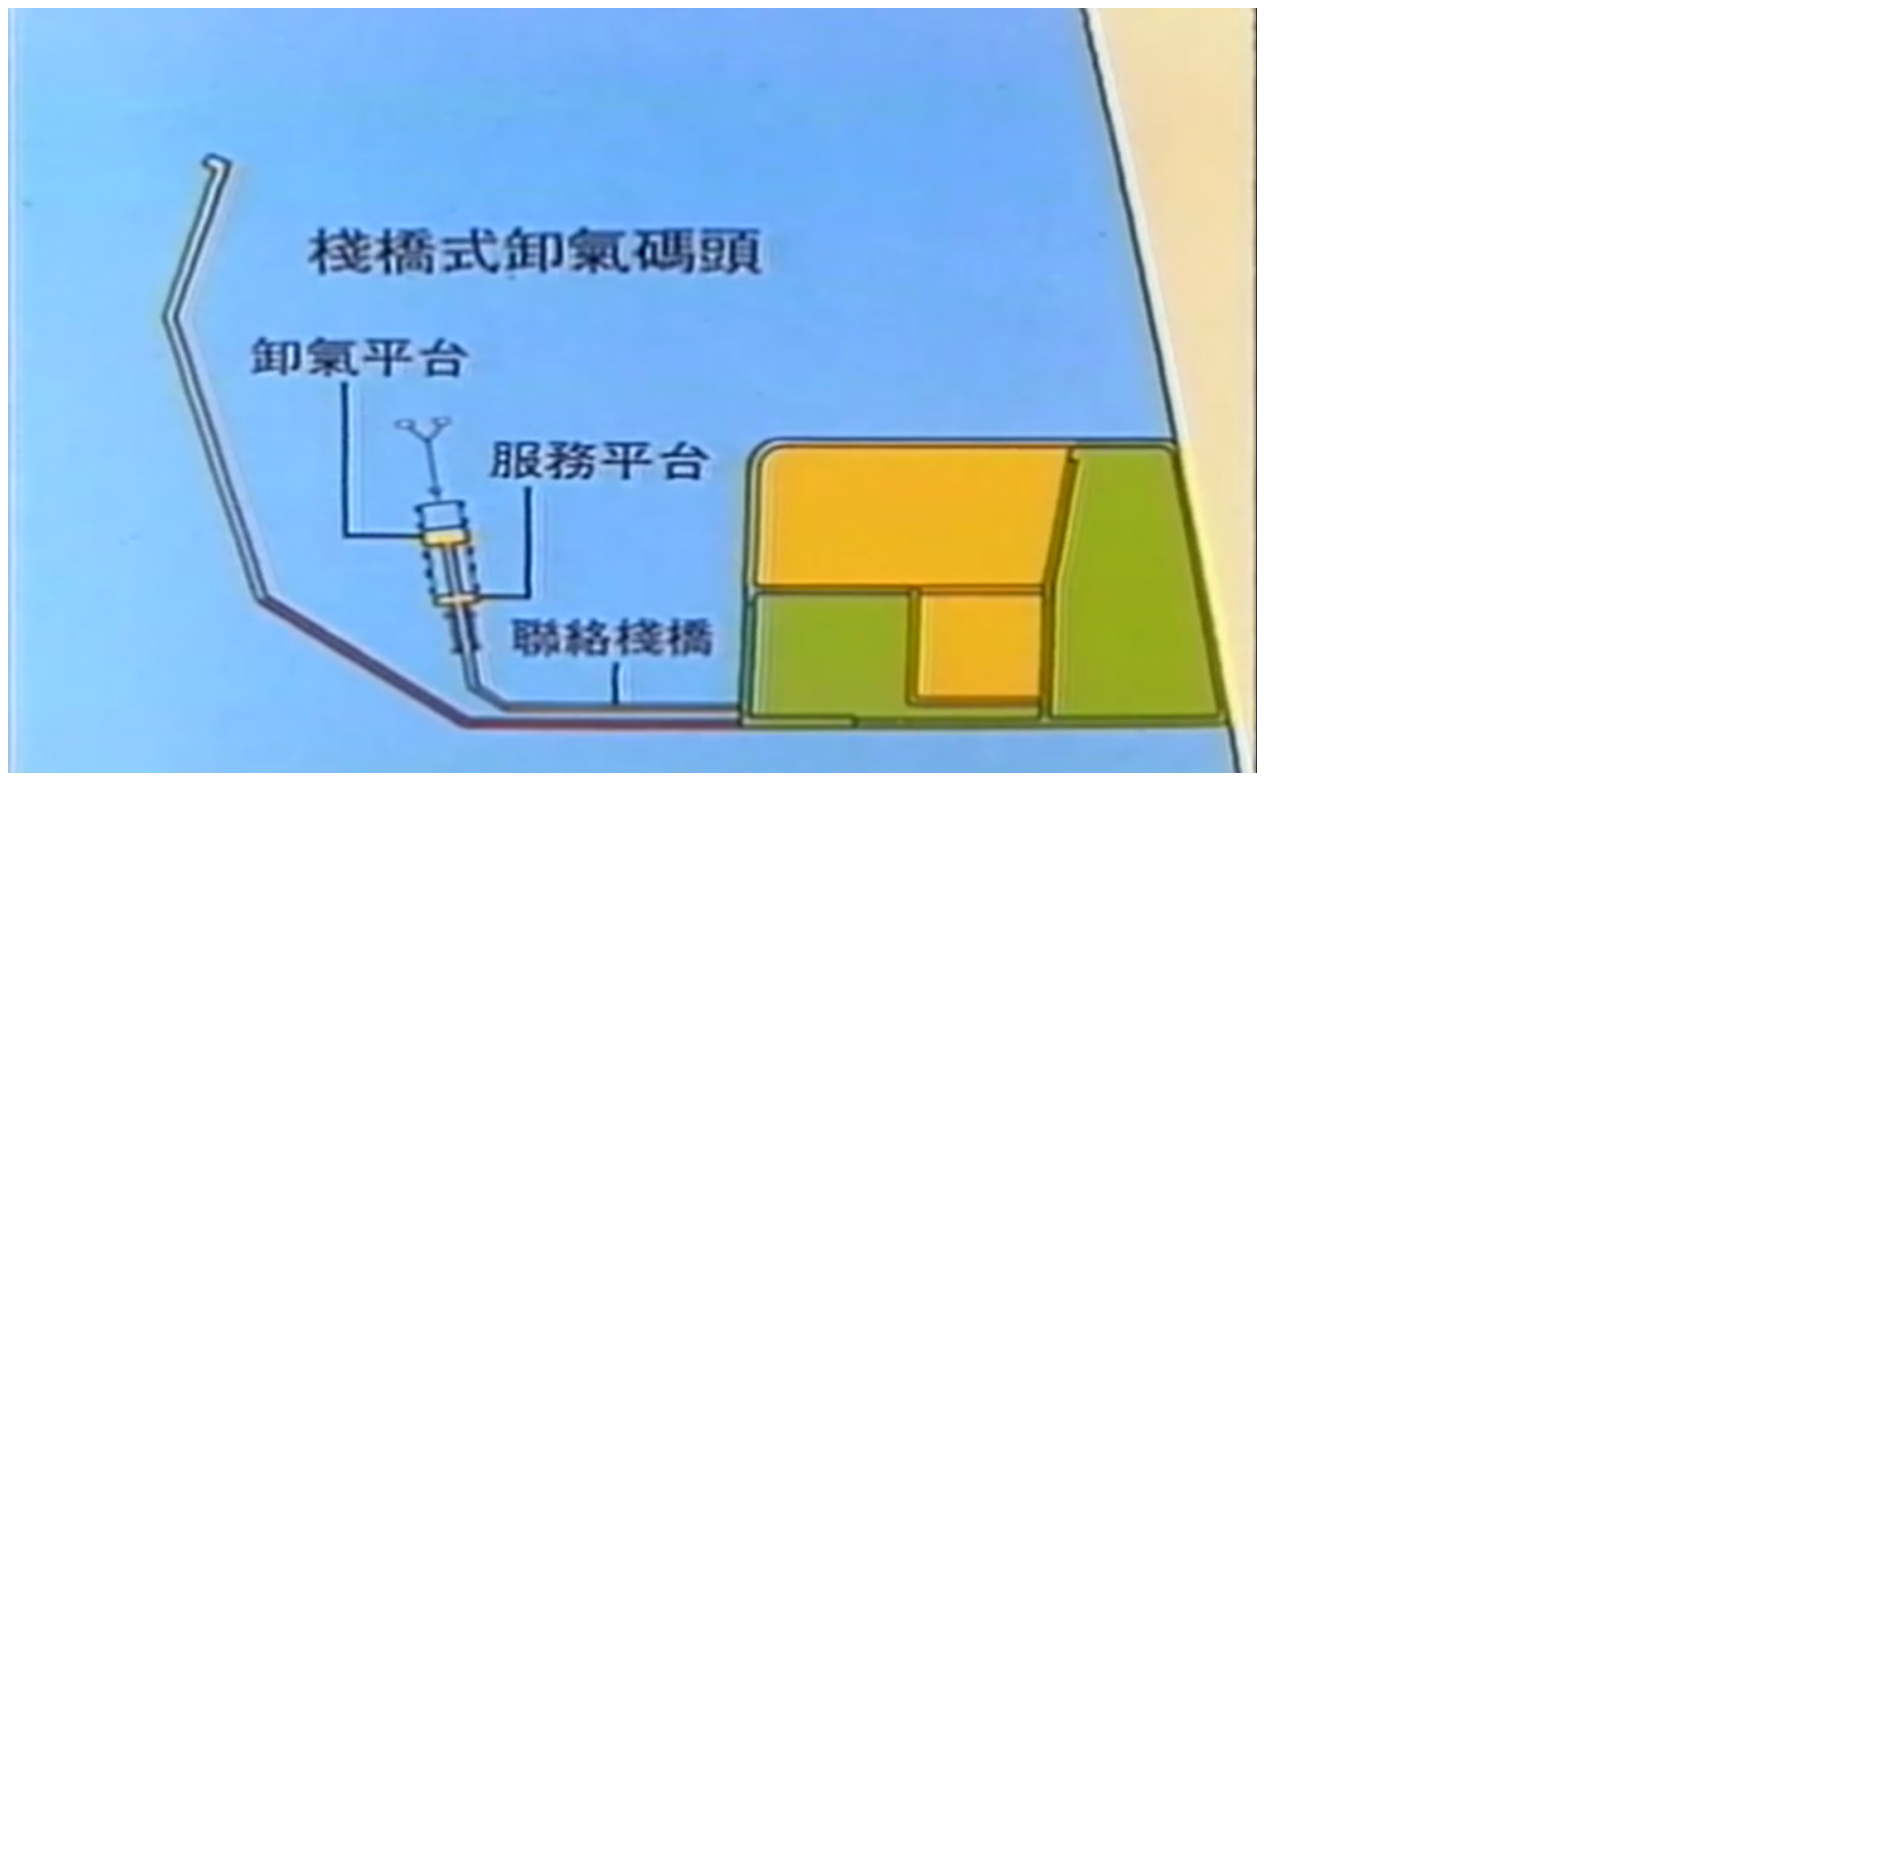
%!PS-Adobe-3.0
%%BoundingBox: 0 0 1890 1861
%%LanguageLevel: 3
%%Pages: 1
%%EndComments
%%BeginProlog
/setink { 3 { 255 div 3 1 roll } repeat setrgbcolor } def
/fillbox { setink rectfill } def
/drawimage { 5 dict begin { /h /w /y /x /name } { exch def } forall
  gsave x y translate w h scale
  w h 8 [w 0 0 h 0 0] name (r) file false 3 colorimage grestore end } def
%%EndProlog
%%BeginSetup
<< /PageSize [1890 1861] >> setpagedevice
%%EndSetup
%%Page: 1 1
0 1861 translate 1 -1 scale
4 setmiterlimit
0 0 1890 1861 255 255 255 fillbox
(assets/img1.rgb) 8 8 1249 765 drawimage
showpage
%%EOF
